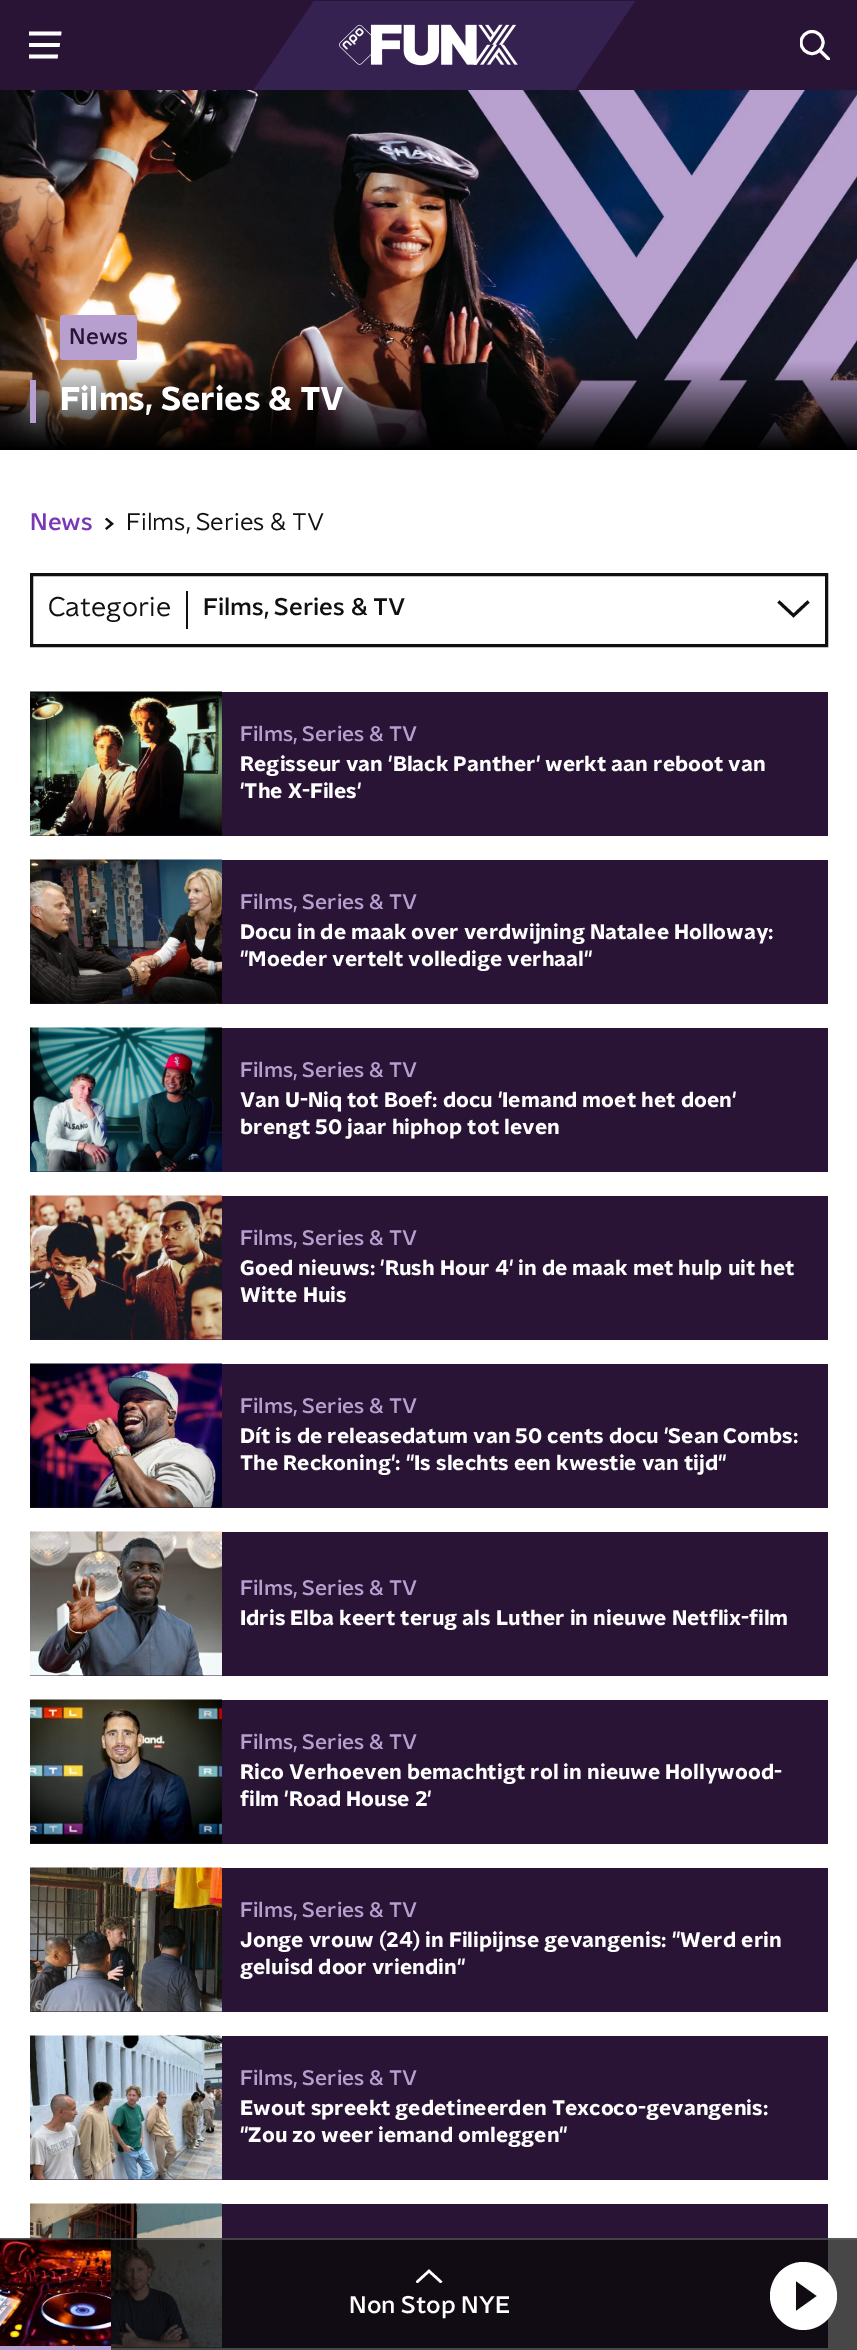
%!PS-Adobe-3.0
%%BoundingBox: 0 0 857 2350
%%LanguageLevel: 3
%%Pages: 1
%%EndComments
%%BeginProlog
/setink { 3 { 255 div 3 1 roll } repeat setrgbcolor } def
/usefont { [ exch dup neg 0 0 3 -1 roll 0 0 ] selectfont } def
/drawtext { setink usefont moveto show } def
/fillbox { setink rectfill } def
/setalpha { dup .setfillconstantalpha .setstrokeconstantalpha } def
/disc { newpath 0 360 arc closepath } def
/rrect { 5 dict begin { /r /h /w /y /x } { exch def } forall
  x r add y moveto x w add y 2 copy h add r arct x w add y h add x 1 index r arct
  x y h add x y r arct x y 2 copy exch w add exch r arct closepath end } def
/drawimage { 5 dict begin { /h /w /y /x /name } { exch def } forall
  gsave x y translate w h scale
  w h 8 [w 0 0 h 0 0] name (r) file false 3 colorimage grestore end } def
%%EndProlog
%%BeginSetup
<< /PageSize [857 2350] /PageUsesTransparency true >> setpagedevice
%%EndSetup
%%Page: 1 1
0 .pushpdf14devicefilter
0 2350 translate 1 -1 scale
4 setmiterlimit
0 0 857 2350 255 255 255 fillbox
0 0 857 90 41 20 54 fillbox
gsave
0 0 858 90 rectclip
54 34 80 setink
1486 647 moveto 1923 1 lineto 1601 1 lineto 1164 647 lineto closepath 842 647 moveto 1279 1 lineto 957 1 lineto 520 647 lineto closepath -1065 1 moveto -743 1 lineto -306 647 lineto -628 647 lineto closepath 198 647 moveto 267 544 lineto 635 1 lineto 314 1 lineto 107 306 lineto -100 1 lineto -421 1 lineto -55 544 lineto -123 647 lineto closepath fill
grestore
gsave
29 29 33 33 rectclip
255 255 255 setink
28.5 31.5 moveto 61.5 31.5 lineto 61 35.5 lineto 28.5 35.5 lineto closepath 28.5 43 moveto 60 43 lineto 59.5 47 lineto 28.5 47 lineto closepath 28.5 54.5 moveto 58 54.5 lineto 57.5 58.5 lineto 28.5 58.5 lineto closepath fill
grestore
(assets/img1.rgb) 339 24 179 42 drawimage
gsave
800 30 30 30 rectclip
255 255 255 setink
2.9 setlinewidth
812 42.5 11 disc stroke
2 setlinecap
820 50.5 moveto 828.5 59 lineto stroke
grestore
(assets/img2.rgb) 0 90 857 360 drawimage
183 159 207 setink
60 315 77 45 3 rrect fill
(News) 69 344 /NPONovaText-Medium 22.5 41 20 54 drawtext
30 380 6 43 183 159 207 fillbox
(Films, Series & TV) 60 410 /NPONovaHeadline-Bold 33 255 255 255 drawtext
(News) 30 530 /NPONovaText-Medium 24 123 56 180 drawtext
(assets/img3.rgb) 105 518 9 12 drawimage
(Films, Series & TV) 126 530 /NPONovaText-Regular 24 16 16 16 drawtext
3 setlinewidth
31.5 574.5 795 71 rectstroke
(Categorie) 48 616 /NPONovaText-Regular 27 16 16 16 drawtext
186 591 2 38 16 16 16 fillbox
(Films, Series & TV) 203 615 /NPONovaText-Medium 24 16 16 16 drawtext
778.5 601.5 moveto 793.5 615.5 lineto 808.5 601.5 lineto stroke
30 692 798 144 41 20 54 fillbox
(assets/img4.rgb) 30 691 192 145 drawimage
(Films, Series & TV) 240 741 /NPONovaText-Medium 21 183 159 207 drawtext
(Regisseur van 'Black Panther' werkt aan reboot van) 240 771 /NPONovaHeadline-Bold 21 255 255 255 drawtext
('The X-Files') 240 798 /NPONovaHeadline-Bold 21 255 255 255 drawtext
30 860 798 144 41 20 54 fillbox
(assets/img5.rgb) 30 859 192 145 drawimage
(Films, Series & TV) 240 909 /NPONovaText-Medium 21 183 159 207 drawtext
(Docu in de maak over verdwijning Natalee Holloway:) 240 939 /NPONovaHeadline-Bold 21 255 255 255 drawtext
("Moeder vertelt volledige verhaal") 240 966 /NPONovaHeadline-Bold 21 255 255 255 drawtext
30 1028 798 144 41 20 54 fillbox
(assets/img6.rgb) 30 1027 192 145 drawimage
(Films, Series & TV) 240 1077 /NPONovaText-Medium 21 183 159 207 drawtext
(Van U-Niq tot Boef: docu 'Iemand moet het doen') 240 1107 /NPONovaHeadline-Bold 21 255 255 255 drawtext
(brengt 50 jaar hiphop tot leven) 240 1134 /NPONovaHeadline-Bold 21 255 255 255 drawtext
30 1196 798 144 41 20 54 fillbox
(assets/img7.rgb) 30 1195 192 145 drawimage
(Films, Series & TV) 240 1245 /NPONovaText-Medium 21 183 159 207 drawtext
(Goed nieuws: 'Rush Hour 4' in de maak met hulp uit het) 240 1275 /NPONovaHeadline-Bold 21 255 255 255 drawtext
(Witte Huis) 240 1302 /NPONovaHeadline-Bold 21 255 255 255 drawtext
30 1364 798 144 41 20 54 fillbox
(assets/img8.rgb) 30 1363 192 145 drawimage
(Films, Series & TV) 240 1413 /NPONovaText-Medium 21 183 159 207 drawtext
(Dít is de releasedatum van 50 cents docu 'Sean Combs:) 240 1443 /NPONovaHeadline-Bold 21 255 255 255 drawtext
(The Reckoning': "Is slechts een kwestie van tijd") 240 1470 /NPONovaHeadline-Bold 21 255 255 255 drawtext
30 1532 798 144 41 20 54 fillbox
(assets/img9.rgb) 30 1531 192 145 drawimage
(Films, Series & TV) 240 1595 /NPONovaText-Medium 21 183 159 207 drawtext
(Idris Elba keert terug als Luther in nieuwe Netflix-film) 240 1625 /NPONovaHeadline-Bold 21 255 255 255 drawtext
30 1700 798 144 41 20 54 fillbox
(assets/img10.rgb) 30 1699 192 145 drawimage
(Films, Series & TV) 240 1749 /NPONovaText-Medium 21 183 159 207 drawtext
(Rico Verhoeven bemachtigt rol in nieuwe Hollywood-) 240 1779 /NPONovaHeadline-Bold 21 255 255 255 drawtext
(film 'Road House 2') 240 1806 /NPONovaHeadline-Bold 21 255 255 255 drawtext
30 1868 798 144 41 20 54 fillbox
(assets/img11.rgb) 30 1867 192 145 drawimage
(Films, Series & TV) 240 1917 /NPONovaText-Medium 21 183 159 207 drawtext
(Jonge vrouw \(24\) in Filipijnse gevangenis: "Werd erin) 240 1947 /NPONovaHeadline-Bold 21 255 255 255 drawtext
(geluisd door vriendin") 240 1974 /NPONovaHeadline-Bold 21 255 255 255 drawtext
30 2036 798 144 41 20 54 fillbox
(assets/img12.rgb) 30 2035 192 145 drawimage
(Films, Series & TV) 240 2085 /NPONovaText-Medium 21 183 159 207 drawtext
(Ewout spreekt gedetineerden Texcoco-gevangenis:) 240 2115 /NPONovaHeadline-Bold 21 255 255 255 drawtext
("Zou zo weer iemand omleggen") 240 2142 /NPONovaHeadline-Bold 21 255 255 255 drawtext
111 2204 717 144 41 20 54 fillbox
(assets/img13.rgb) 30 2203 192 145 drawimage
0.75 setalpha
0 2238 857 112 9 9 9 fillbox
0.65 setalpha
0 2238 857 2 95 95 95 fillbox
1 setalpha
(assets/img14.rgb) 0 2239 111 107 drawimage
0 2346 111 4 183 159 207 fillbox
gsave
416 2268 27 15 rectclip
255 255 255 setink
2.5 setlinewidth
441.5 2282.5 moveto 429 2271 lineto 416.5 2282.5 lineto stroke
grestore
(Non Stop NYE) 349 2313 /NPONovaText-Medium 24 255 255 255 drawtext
803 2262 moveto 785 2262 770 2277 770 2296 curveto 770 2314 785 2330 803 2330 curveto 822 2330 837 2314 837 2296 curveto 837 2277 822 2262 803 2262 curveto closepath 796 2311 moveto 796 2281 lineto 817 2296 lineto closepath fill
.poppdf14devicefilter showpage
%%EOF
